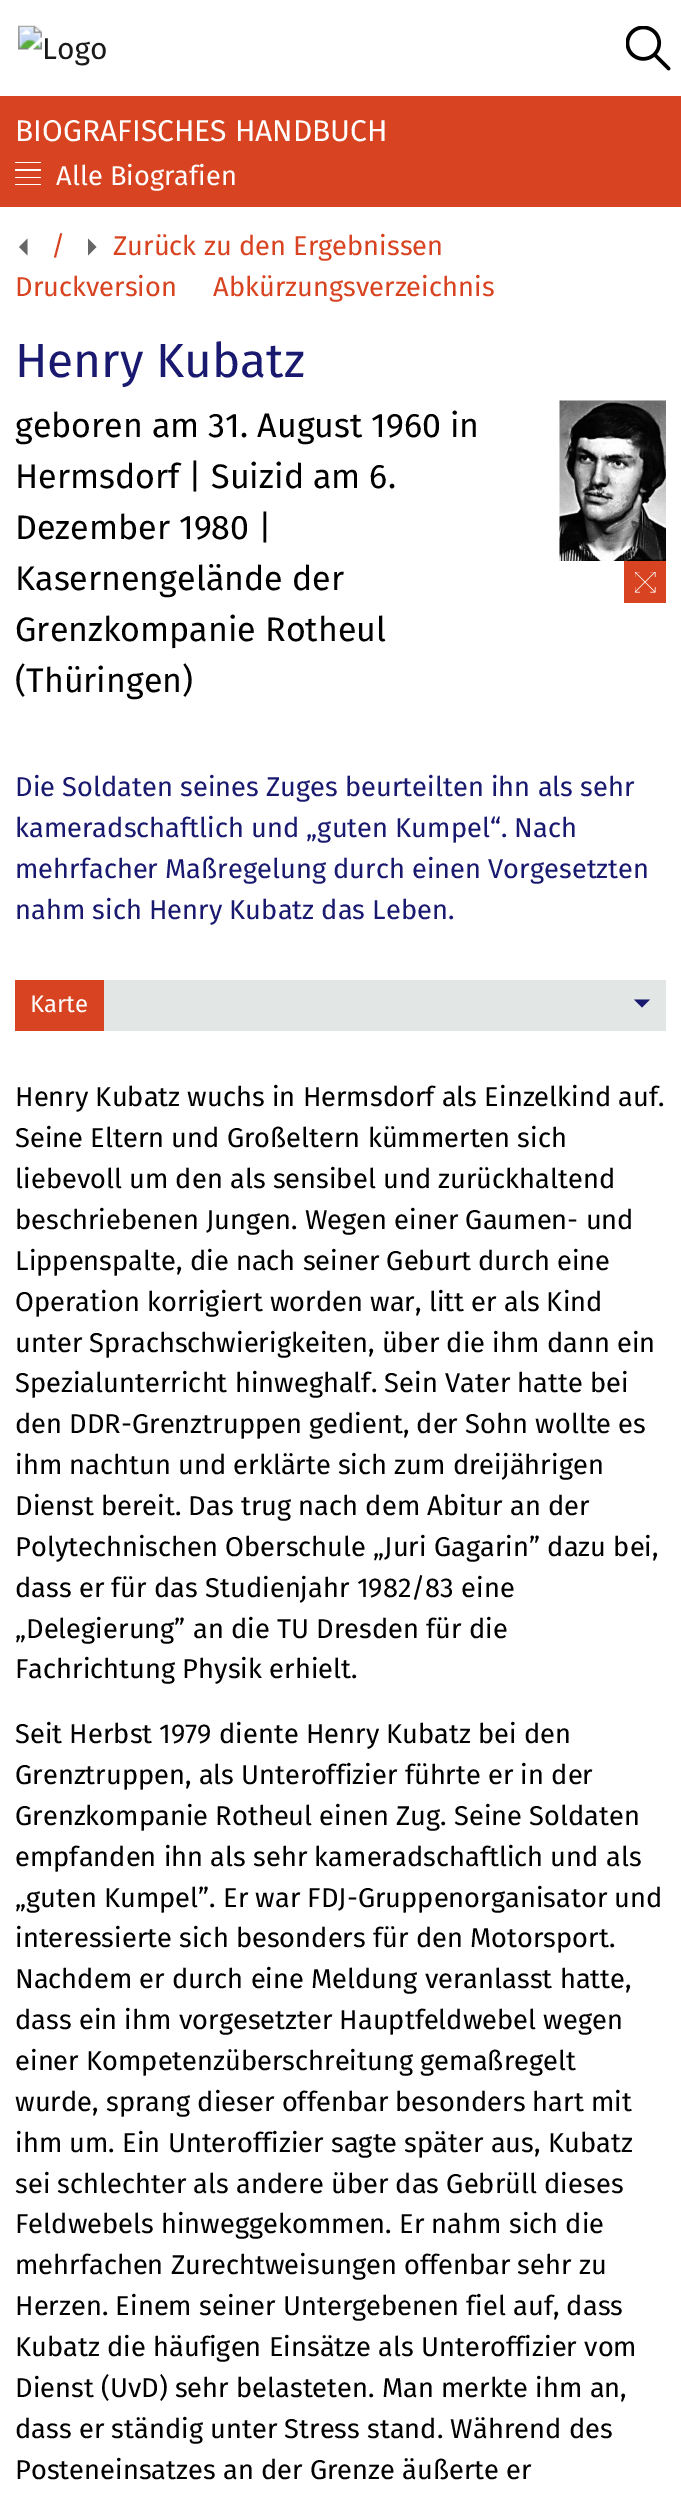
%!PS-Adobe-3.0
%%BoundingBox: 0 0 681 2495
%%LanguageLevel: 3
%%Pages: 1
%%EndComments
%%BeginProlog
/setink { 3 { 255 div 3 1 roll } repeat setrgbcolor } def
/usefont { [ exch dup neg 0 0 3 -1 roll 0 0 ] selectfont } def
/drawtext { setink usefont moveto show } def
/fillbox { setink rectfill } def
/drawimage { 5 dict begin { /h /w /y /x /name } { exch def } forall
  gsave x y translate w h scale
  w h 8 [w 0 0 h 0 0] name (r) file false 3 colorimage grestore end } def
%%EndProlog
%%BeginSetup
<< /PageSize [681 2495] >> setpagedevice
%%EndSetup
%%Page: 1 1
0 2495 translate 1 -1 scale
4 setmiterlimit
0 0 681 2495 255 255 255 fillbox
(assets/img1.rgb) 18 25 88 41 drawimage
(assets/img2.rgb) 626 26 45 45 drawimage
0 96 681 111 216 68 33 fillbox
(BIOGRAFISCHES HANDBUCH) 15 141 /FiraSans-Regular 30 255 255 255 drawtext
15 162 26 1 255 255 255 fillbox
15 169 26 2 255 255 255 fillbox
15 177 26 1 255 255 255 fillbox
15 184 26 1 255 255 255 fillbox
(Alle Biografien) 56 185 /FiraSans-Regular 27.25 255 255 255 drawtext
102 102 102 setink
19 247 moveto 27.5 255.5 lineto 27.5 238.5 lineto closepath fill
(/) 51 255 /FiraSans-Regular 27.25 216 68 33 drawtext
102 102 102 setink
88 238.5 moveto 88 255.5 lineto 96.5 247 lineto closepath fill
(Zurück zu den Ergebnissen) 113 255 /FiraSans-Regular 27.25 216 68 33 drawtext
(Druckversion) 15 296 /FiraSans-Regular 27.25 216 68 33 drawtext
(Abkürzungsverzeichnis) 213 296 /FiraSans-Regular 27.25 216 68 33 drawtext
(Henry Kubatz) 15 377 /FiraSans-Regular 47.75 25 25 112 drawtext
(geboren am 31. August 1960 in) 15 437 /FiraSans-Regular 34 0 0 0 drawtext
(Hermsdorf | Suizid am 6.) 15 488 /FiraSans-Regular 34 0 0 0 drawtext
(Dezember 1980 |) 15 539 /FiraSans-Regular 34 0 0 0 drawtext
(Kasernengelände der) 15 590 /FiraSans-Regular 34 0 0 0 drawtext
(Grenzkompanie Rotheul) 15 641 /FiraSans-Regular 34 0 0 0 drawtext
(\(Thüringen\)) 15 692 /FiraSans-Regular 34 0 0 0 drawtext
(assets/img3.rgb) 559 400 107 161 drawimage
624 561 42 42 216 68 33 fillbox
(assets/img4.rgb) 635 572 21 21 drawimage
(Die Soldaten seines Zuges beurteilten ihn als sehr) 15 796 /FiraSans-Regular 27.25 25 25 112 drawtext
(kameradschaftlich und „guten Kumpel“. Nach) 15 837 /FiraSans-Regular 27.25 25 25 112 drawtext
(mehrfacher Maßregelung durch einen Vorgesetzten) 15 878 /FiraSans-Regular 27.25 25 25 112 drawtext
(nahm sich Henry Kubatz das Leben.) 15 919 /FiraSans-Regular 27.25 25 25 112 drawtext
104 980 562 51 226 231 230 fillbox
15 980 89 51 216 68 33 fillbox
(Karte) 30 1012 /FiraSans-Regular 24 255 255 255 drawtext
25 25 112 setink
642 1007.5 moveto 634 999.5 lineto 650 999.5 lineto closepath fill
(Henry Kubatz wuchs in Hermsdorf als Einzelkind auf.) 15 1106 /FiraSans-Regular 27.25 0 0 0 drawtext
(Seine Eltern und Großeltern kümmerten sich) 15 1147 /FiraSans-Regular 27.25 0 0 0 drawtext
(liebevoll um den als sensibel und zurückhaltend) 15 1188 /FiraSans-Regular 27.25 0 0 0 drawtext
(beschriebenen Jungen. Wegen einer Gaumen- und) 15 1229 /FiraSans-Regular 27.25 0 0 0 drawtext
(Lippenspalte, die nach seiner Geburt durch eine) 15 1270 /FiraSans-Regular 27.25 0 0 0 drawtext
(Operation korrigiert worden war, litt er als Kind) 15 1311 /FiraSans-Regular 27.25 0 0 0 drawtext
(unter Sprachschwierigkeiten, über die ihm dann ein) 15 1352 /FiraSans-Regular 27.25 0 0 0 drawtext
(Spezialunterricht hinweghalf. Sein Vater hatte bei) 15 1392 /FiraSans-Regular 27.25 0 0 0 drawtext
(den DDR-Grenztruppen gedient, der Sohn wollte es) 15 1433 /FiraSans-Regular 27.25 0 0 0 drawtext
(ihm nachtun und erklärte sich zum dreijährigen) 15 1474 /FiraSans-Regular 27.25 0 0 0 drawtext
(Dienst bereit. Das trug nach dem Abitur an der) 15 1515 /FiraSans-Regular 27.25 0 0 0 drawtext
(Polytechnischen Oberschule „Juri Gagarin” dazu bei,) 15 1556 /FiraSans-Regular 27.25 0 0 0 drawtext
(dass er für das Studienjahr 1982/83 eine) 15 1597 /FiraSans-Regular 27.25 0 0 0 drawtext
(„Delegierung” an die TU Dresden für die) 15 1638 /FiraSans-Regular 27.25 0 0 0 drawtext
(Fachrichtung Physik erhielt.) 15 1678 /FiraSans-Regular 27.25 0 0 0 drawtext
(Seit Herbst 1979 diente Henry Kubatz bei den) 15 1743 /FiraSans-Regular 27.25 0 0 0 drawtext
(Grenztruppen, als Unteroffizier führte er in der) 15 1784 /FiraSans-Regular 27.25 0 0 0 drawtext
(Grenzkompanie Rotheul einen Zug. Seine Soldaten) 15 1825 /FiraSans-Regular 27.25 0 0 0 drawtext
(empfanden ihn als sehr kameradschaftlich und als) 15 1866 /FiraSans-Regular 27.25 0 0 0 drawtext
(„guten Kumpel”. Er war FDJ-Gruppenorganisator und) 15 1907 /FiraSans-Regular 27.25 0 0 0 drawtext
(interessierte sich besonders für den Motorsport.) 15 1947 /FiraSans-Regular 27.25 0 0 0 drawtext
(Nachdem er durch eine Meldung veranlasst hatte,) 15 1988 /FiraSans-Regular 27.25 0 0 0 drawtext
(dass ein ihm vorgesetzter Hauptfeldwebel wegen) 15 2029 /FiraSans-Regular 27.25 0 0 0 drawtext
(einer Kompetenzüberschreitung gemaßregelt) 15 2070 /FiraSans-Regular 27.25 0 0 0 drawtext
(wurde, sprang dieser offenbar besonders hart mit) 15 2111 /FiraSans-Regular 27.25 0 0 0 drawtext
(ihm um. Ein Unteroffizier sagte später aus, Kubatz) 15 2152 /FiraSans-Regular 27.25 0 0 0 drawtext
(sei schlechter als andere über das Gebrüll dieses) 15 2193 /FiraSans-Regular 27.25 0 0 0 drawtext
(Feldwebels hinweggekommen. Er nahm sich die) 15 2233 /FiraSans-Regular 27.25 0 0 0 drawtext
(mehrfachen Zurechtweisungen offenbar sehr zu) 15 2274 /FiraSans-Regular 27.25 0 0 0 drawtext
(Herzen. Einem seiner Untergebenen fiel auf, dass) 15 2315 /FiraSans-Regular 27.25 0 0 0 drawtext
(Kubatz die häufigen Einsätze als Unteroffizier vom) 15 2356 /FiraSans-Regular 27.25 0 0 0 drawtext
(Dienst \(UvD\) sehr belasteten. Man merkte ihm an,) 15 2397 /FiraSans-Regular 27.25 0 0 0 drawtext
(dass er ständig unter Stress stand. Während des) 15 2438 /FiraSans-Regular 27.25 0 0 0 drawtext
(Posteneinsatzes an der Grenze äußerte er) 15 2479 /FiraSans-Regular 27.25 0 0 0 drawtext
showpage
%%EOF
